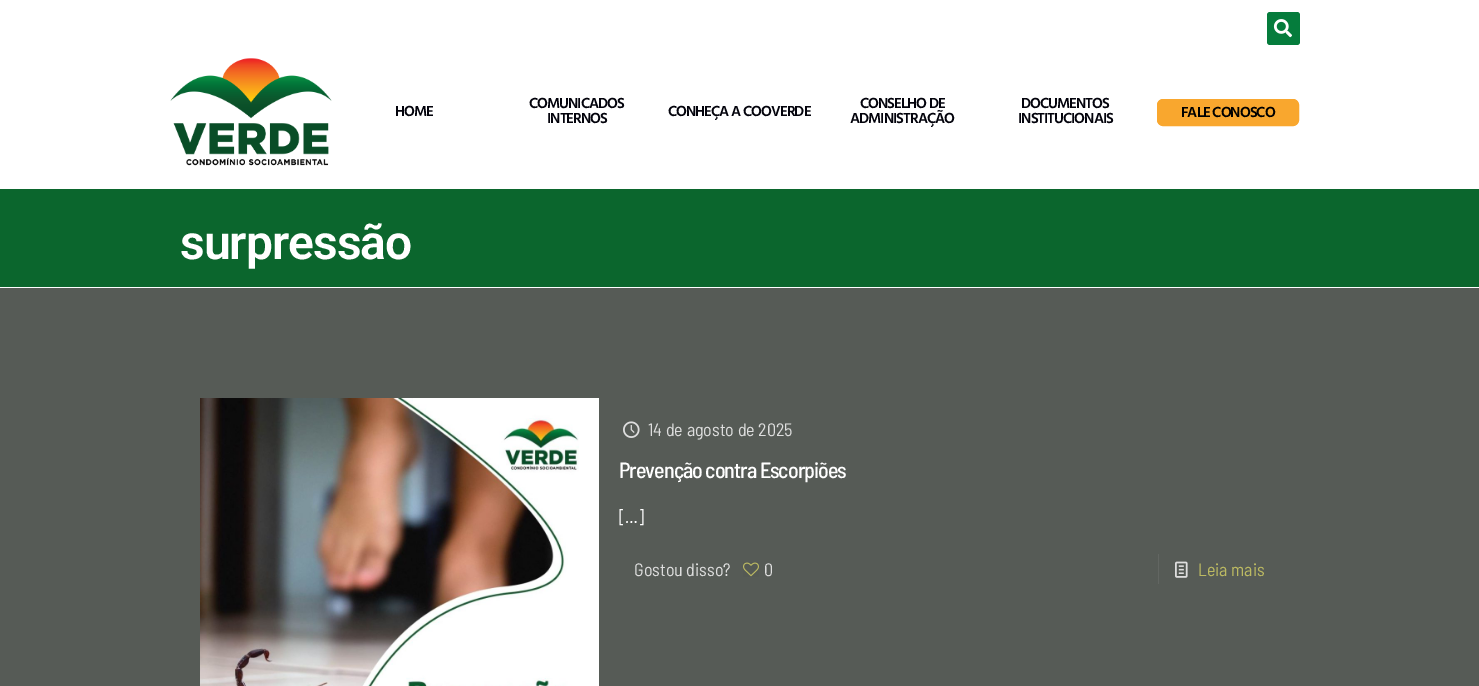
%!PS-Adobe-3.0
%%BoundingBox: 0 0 1479 686
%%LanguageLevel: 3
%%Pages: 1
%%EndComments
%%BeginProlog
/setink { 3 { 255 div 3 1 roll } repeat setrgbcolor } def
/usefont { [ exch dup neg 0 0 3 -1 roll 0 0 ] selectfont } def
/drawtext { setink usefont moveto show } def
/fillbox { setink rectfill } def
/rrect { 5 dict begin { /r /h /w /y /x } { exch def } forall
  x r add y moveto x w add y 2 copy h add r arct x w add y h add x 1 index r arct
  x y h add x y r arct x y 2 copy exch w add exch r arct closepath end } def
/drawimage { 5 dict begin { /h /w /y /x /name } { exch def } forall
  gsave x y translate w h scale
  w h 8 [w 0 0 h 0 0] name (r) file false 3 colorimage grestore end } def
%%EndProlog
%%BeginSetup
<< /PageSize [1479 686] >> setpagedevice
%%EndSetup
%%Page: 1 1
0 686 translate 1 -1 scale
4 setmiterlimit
0 0 1479 686 255 255 255 fillbox
5 124 60 setink
1267 12 33 33 3 rrect fill
(assets/img1.rgb) 1273 19 19 19 drawimage
(assets/img2.rgb) 170 58 162 108 drawimage
/Hind-SemiBold 15 usefont
3 3 12 setink
395 116 moveto -1 0 (HOME) ashow
529 108 moveto -1 0 (COMUNICADOS) ashow
547 123 moveto -1 0 (INTERNOS) ashow
668 116 moveto -1 0 (CONHEÇA A COOVERDE) ashow
860 108 moveto -1 0 (CONSELHO DE) ashow
850 123 moveto -1 0 (ADMINISTRAÇÃO) ashow
1021 108 moveto -1 0 (DOCUMENTOS) ashow
1018 123 moveto -1 0 (INSTITUCIONAIS) ashow
249 167 46 setink
1157.5 99.5 141 26 5.5 rrect gsave fill grestore
stroke
0 0 0 setink
1181 117 moveto -1 0 (FALE CONOSCO) ashow
0 189 1479 98 11 102 45 fillbox
/Roboto-SemiBold 48 usefont
255 255 255 setink
180 259 moveto -1 0 (surpressão) ashow
0 288 1479 398 86 91 86 fillbox
(assets/img3.rgb) 200 398 399 288 drawimage
(assets/img4.rgb) 623 421 17 17 drawimage
(14 de agosto de 2025) 648 436 /BarlowSemiCondensed-Regular 18 222 222 222 drawtext
/BarlowSemiCondensed-Medium 22 usefont
255 255 255 setink
619 478 moveto -1 0 (Prevenção contra Escorpiões) ashow
([…]) 619 523 /BarlowSemiCondensed-Regular 18 255 255 255 drawtext
(Gostou disso?) 634 576 /BarlowSemiCondensed-Regular 18 222 222 222 drawtext
(assets/img5.rgb) 743 562 16 15 drawimage
(0) 764 576 /BarlowSemiCondensed-Regular 18 222 222 222 drawtext
1158 554 1 30 98 102 98 fillbox
(assets/img6.rgb) 1175 561 13 17 drawimage
(Leia mais) 1198 576 /BarlowSemiCondensed-Regular 18 188 186 98 drawtext
showpage
%%EOF
